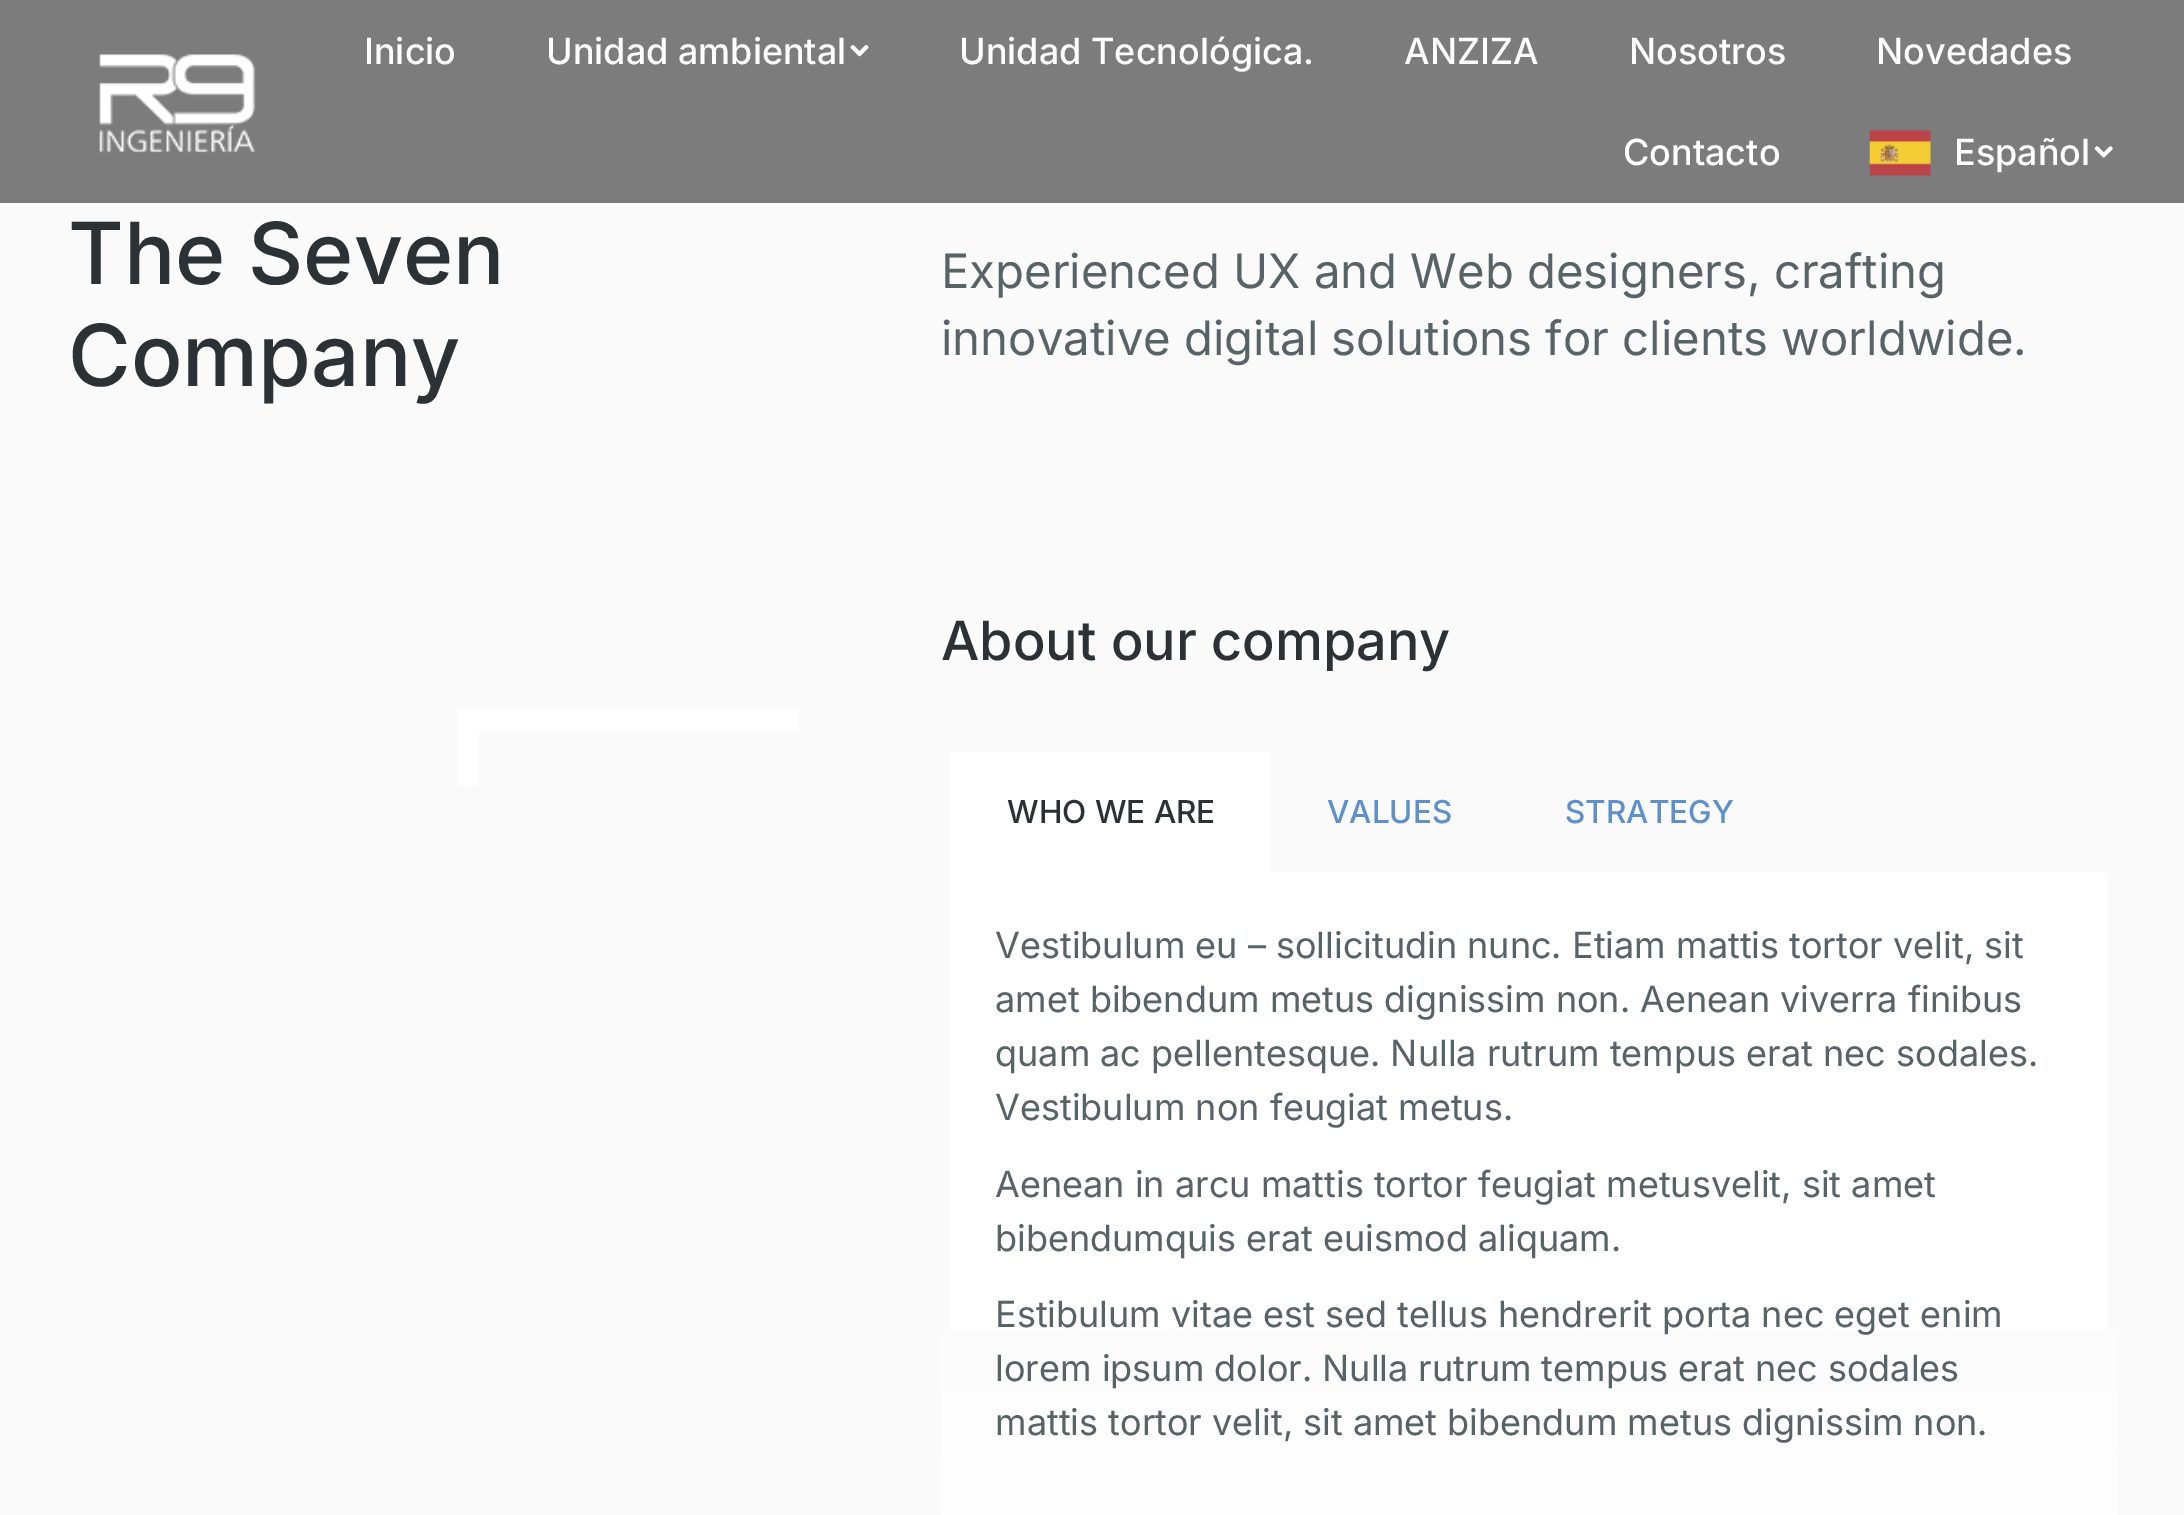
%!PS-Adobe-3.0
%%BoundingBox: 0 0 2184 1515
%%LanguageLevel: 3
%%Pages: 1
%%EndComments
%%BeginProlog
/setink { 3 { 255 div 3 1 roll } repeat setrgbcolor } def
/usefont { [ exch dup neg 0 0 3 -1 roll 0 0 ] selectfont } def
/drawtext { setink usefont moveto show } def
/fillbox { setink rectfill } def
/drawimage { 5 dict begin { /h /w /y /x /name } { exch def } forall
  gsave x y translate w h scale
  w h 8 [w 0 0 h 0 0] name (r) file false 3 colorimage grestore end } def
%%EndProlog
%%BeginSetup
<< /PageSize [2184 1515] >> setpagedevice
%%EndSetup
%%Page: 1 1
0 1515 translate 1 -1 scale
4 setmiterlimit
0 0 2184 1515 250 250 250 fillbox
0 0 2184 203 124 124 124 fillbox
(assets/img1.rgb) 99 54 157 99 drawimage
(Inicio) 364 64 /Inter-Medium 36 255 255 255 drawtext
(Unidad ambiental) 546 64 /Inter-Medium 36 255 255 255 drawtext
(assets/img2.rgb) 850 45 19 12 drawimage
(Unidad Tecnológica.) 959 64 /Inter-Medium 36 255 255 255 drawtext
(ANZIZA) 1404 64 /Inter-Medium 36 255 255 255 drawtext
(Nosotros) 1629 64 /Inter-Medium 36 255 255 255 drawtext
(Novedades) 1876 64 /Inter-Medium 36 255 255 255 drawtext
(Contacto) 1623 165 /Inter-Medium 36 255 255 255 drawtext
(assets/img3.rgb) 1869 130 62 46 drawimage
(Español) 1954 165 /Inter-Medium 36 255 255 255 drawtext
(assets/img4.rgb) 2094 146 19 12 drawimage
(The Seven) 68 284 /Inter-Medium 85.5 43 49 53 drawtext
(Company) 68 386 /Inter-Medium 85.5 43 49 53 drawtext
(Experienced UX and Web designers, crafting) 941 288 /Inter-Regular 47.25 88 99 104 drawtext
(innovative digital solutions for clients worldwide.) 941 355 /Inter-Regular 47.25 88 99 104 drawtext
479 709 320 22 255 255 255 fillbox
457 709 22 76 255 255 255 fillbox
(About our company) 941 660 /Inter-Medium 54 43 49 53 drawtext
gsave 941 1330 moveto 2117 1330 lineto 2117 1515 lineto 941 1515 lineto closepath clip newpath
<< /ShadingType 2 /ColorSpace /DeviceRGB /Coords [1529 743 1529 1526] /Extend [true true] /Function << /FunctionType 3 /Domain [0 1] /Functions [<< /FunctionType 2 /Domain [0 1] /C0 [0.98 0.98 0.98] /C1 [0.98 0.98 0.98] /N 1 >> << /FunctionType 2 /Domain [0 1] /C0 [0.98 0.98 0.98] /C1 [1 1 1] /N 1 >>] /Bounds [0.5] /Encode [0 1 0 1] >> >> shfill grestore
950 752 321 121 255 255 255 fillbox
(WHO WE ARE) 1007 823 /Inter-Medium 31.5 43 49 53 drawtext
(VALUES) 1327 823 /Inter-Medium 31.5 94 145 204 drawtext
(STRATEGY) 1565 823 /Inter-Medium 31.5 94 145 204 drawtext
950 873 1158 457 255 255 255 fillbox
(Vestibulum eu – sollicitudin nunc. Etiam mattis tortor velit, sit) 995 958 /Inter-Regular 36 88 99 104 drawtext
(amet bibendum metus dignissim non. Aenean viverra finibus) 995 1012 /Inter-Regular 36 88 99 104 drawtext
(quam ac pellentesque. Nulla rutrum tempus erat nec sodales.) 995 1066 /Inter-Regular 36 88 99 104 drawtext
(Vestibulum non feugiat metus.) 995 1120 /Inter-Regular 36 88 99 104 drawtext
(Aenean in arcu mattis tortor feugiat metusvelit, sit amet) 995 1197 /Inter-Regular 36 88 99 104 drawtext
(bibendumquis erat euismod aliquam.) 995 1251 /Inter-Regular 36 88 99 104 drawtext
(Estibulum vitae est sed tellus hendrerit porta nec eget enim) 995 1327 /Inter-Regular 36 88 99 104 drawtext
(lorem ipsum dolor. Nulla rutrum tempus erat nec sodales) 995 1381 /Inter-Regular 36 88 99 104 drawtext
(mattis tortor velit, sit amet bibendum metus dignissim non.) 995 1435 /Inter-Regular 36 88 99 104 drawtext
showpage
%%EOF
